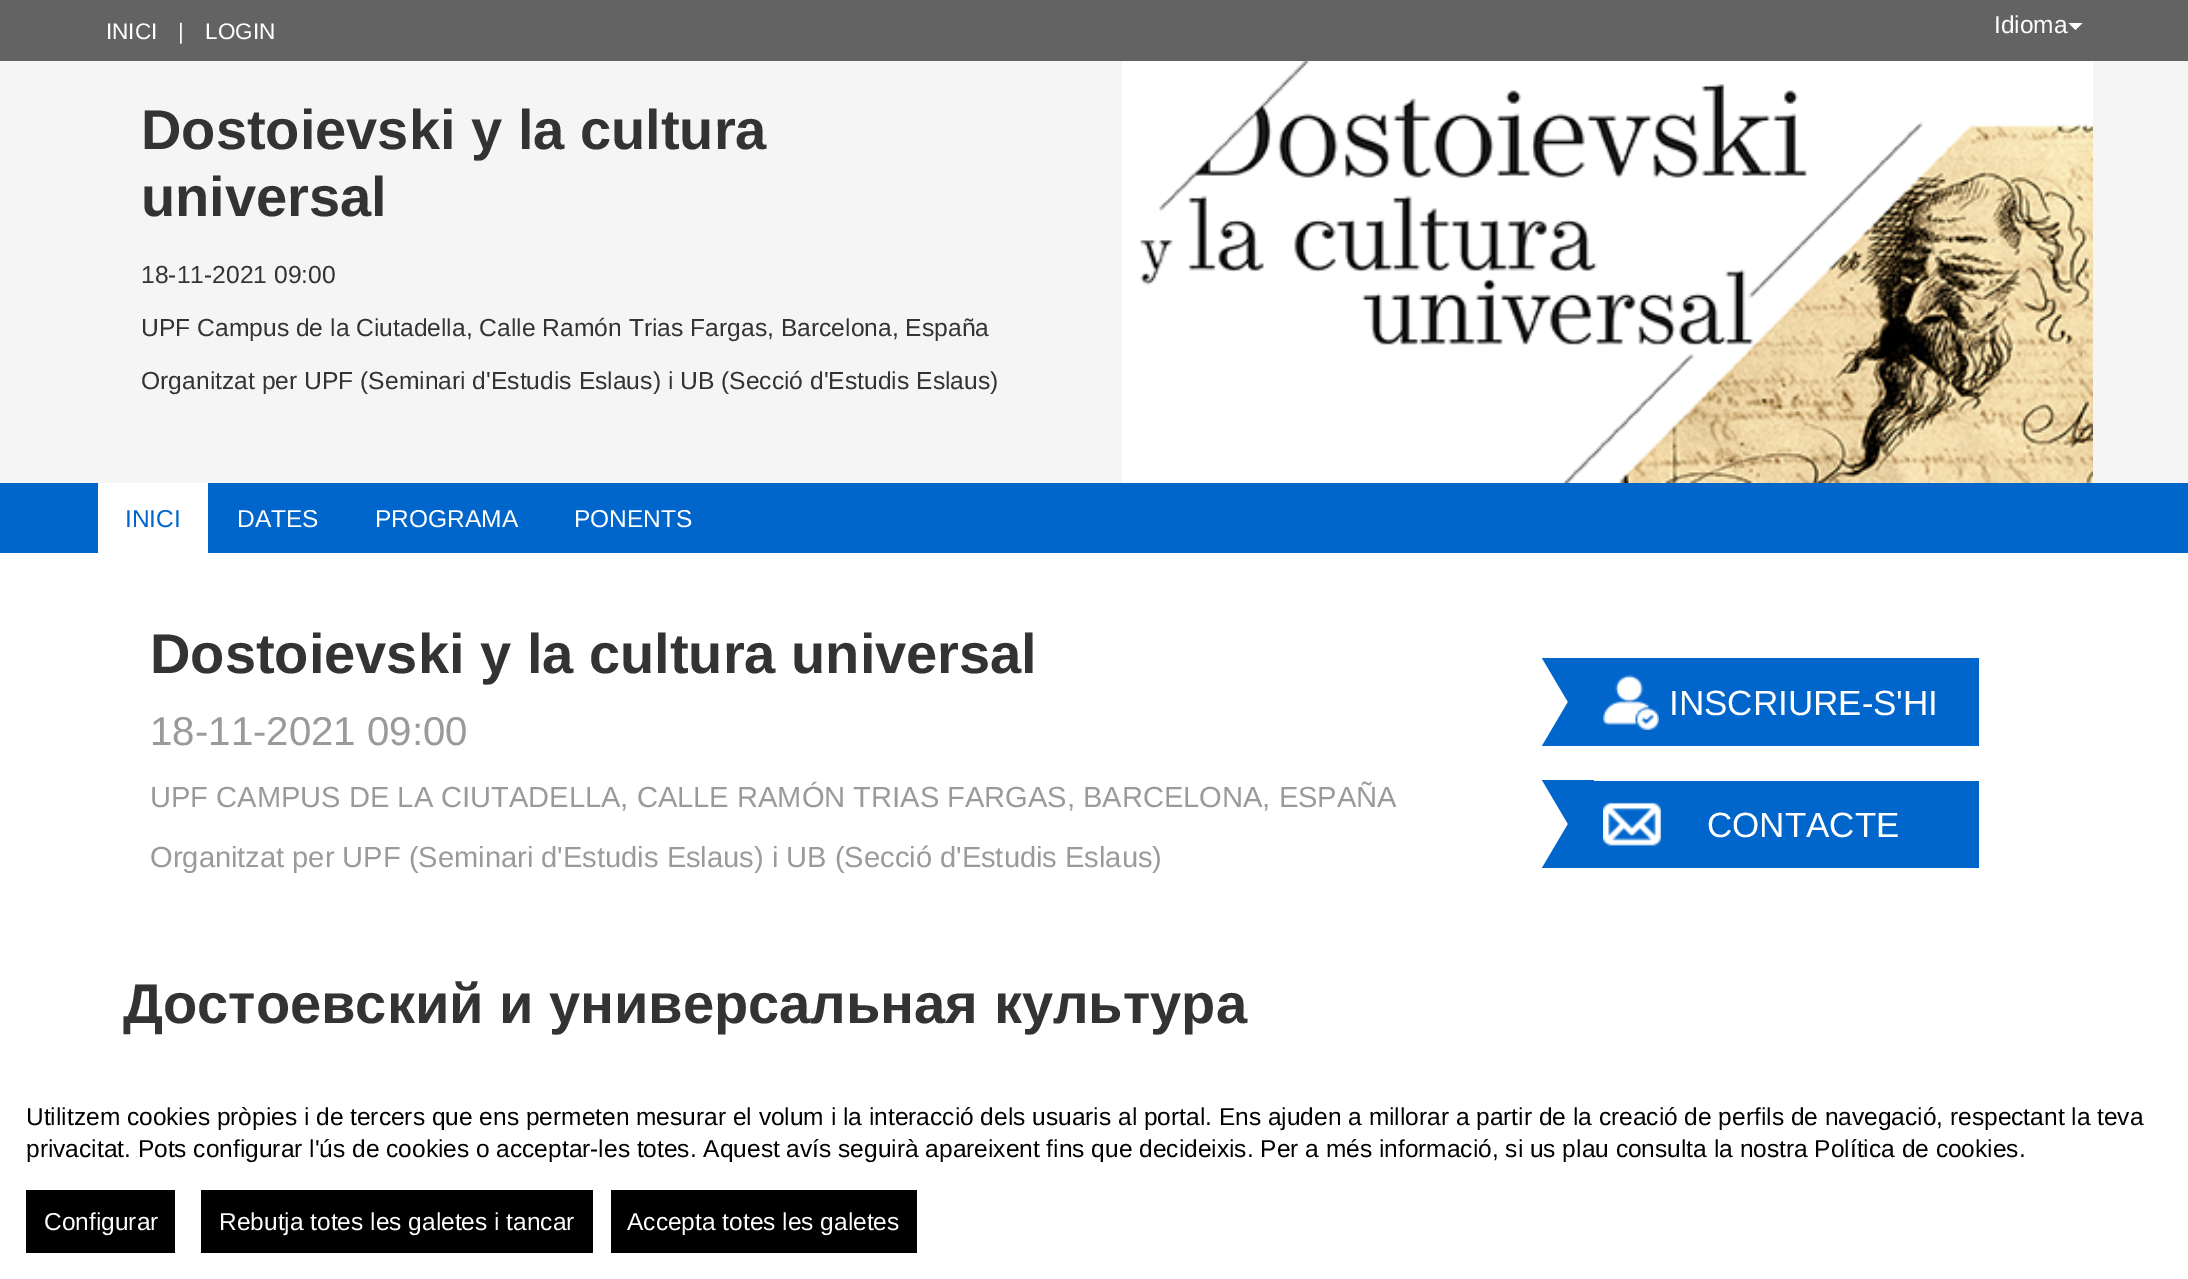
%!PS-Adobe-3.0
%%BoundingBox: 0 0 2188 1279
%%LanguageLevel: 3
%%Pages: 1
%%EndComments
%%BeginProlog
/setink { 3 { 255 div 3 1 roll } repeat setrgbcolor } def
/usefont { [ exch dup neg 0 0 3 -1 roll 0 0 ] selectfont } def
/drawtext { setink usefont moveto show } def
/fillbox { setink rectfill } def
/drawimage { 5 dict begin { /h /w /y /x /name } { exch def } forall
  gsave x y translate w h scale
  w h 8 [w 0 0 h 0 0] name (r) file false 3 colorimage grestore end } def
%%EndProlog
%%BeginSetup
<< /PageSize [2188 1279] >> setpagedevice
%%EndSetup
%%Page: 1 1
0 1279 translate 1 -1 scale
4 setmiterlimit
0 0 2188 1279 255 255 255 fillbox
0 0 2188 61 99 99 99 fillbox
(INICI) 106 39 /LiberationSans-Regular 22.5 255 255 255 drawtext
(|) 178 39 /LiberationSans-Regular 22.5 255 255 255 drawtext
(LOGIN) 205 39 /LiberationSans-Regular 22.5 255 255 255 drawtext
(Idioma) 1994 33 /LiberationSans-Regular 24.5 255 255 255 drawtext
2068.5 23 moveto 2082.5 23 lineto 2075.5 30 lineto closepath fill
0 61 2188 422 245 245 245 fillbox
(Dostoievski y la cultura) 141 149 /LiberationSans-Bold 56 51 51 51 drawtext
(universal) 141 216 /LiberationSans-Bold 56 51 51 51 drawtext
(18-11-2021 09:00) 141 283 /LiberationSans-Regular 24.65 51 51 51 drawtext
(UPF Campus de la Ciutadella, Calle Ramón Trias Fargas, Barcelona, España) 141 336 /LiberationSans-Regular 24.65 51 51 51 drawtext
(Organitzat per UPF \(Seminari d'Estudis Eslaus\) i UB \(Secció d'Estudis Eslaus\)) 141 389 /LiberationSans-Regular 24.65 51 51 51 drawtext
(assets/img1.rgb) 1122 61 971 422 drawimage
0 483 2188 70 0 102 204 fillbox
98 483 110 70 255 255 255 fillbox
(INICI) 125 527 /LiberationSans-Regular 24.5 0 102 204 drawtext
(DATES) 237 527 /LiberationSans-Regular 24.5 255 255 255 drawtext
(PROGRAMA) 375 527 /LiberationSans-Regular 24.5 255 255 255 drawtext
(PONENTS) 574 527 /LiberationSans-Regular 24.5 255 255 255 drawtext
(Dostoievski y la cultura universal) 150 673 /LiberationSans-Bold 56 51 51 51 drawtext
(18-11-2021 09:00) 150 745 /LiberationSans-Regular 40.25 154 154 154 drawtext
(UPF CAMPUS DE LA CIUTADELLA, CALLE RAMÓN TRIAS FARGAS, BARCELONA, ESPAÑA) 150 807 /LiberationSans-Regular 29.1 154 154 154 drawtext
(Organitzat per UPF \(Seminari d'Estudis Eslaus\) i UB \(Secció d'Estudis Eslaus\)) 150 867 /LiberationSans-Regular 29.1 154 154 154 drawtext
1594 658 385 88 0 102 204 fillbox
1542 658 moveto 1594 658 lineto 1568 702 lineto closepath fill
1568 658 26 88 0 102 204 fillbox
1594 746 moveto 1542 746 lineto 1568 702 lineto closepath fill
(assets/img2.rgb) 1603 675 56 55 drawimage
(INSCRIURE-S'HI) 1669 715 /LiberationSans-Regular 35 255 255 255 drawtext
1594 781 385 87 0 102 204 fillbox
1542 780 moveto 1594 780 lineto 1568 824 lineto closepath fill
1568 781 26 87 0 102 204 fillbox
1594 868 moveto 1542 868 lineto 1568 824 lineto closepath fill
(assets/img3.rgb) 1603 802 58 44 drawimage
(CONTACTE) 1707 837 /LiberationSans-Regular 35 255 255 255 drawtext
(Достоевский и универсальная культура) 123 1023 /LiberationSans-Bold 56 51 51 51 drawtext
(Utilitzem cookies pròpies i de tercers que ens permeten mesurar el volum i la interacció dels usuaris al portal. Ens ajuden a millorar a partir de la creació de perfils de navegació, respectant la teva) 26 1125 /LiberationSans-Regular 24.5 0 0 0 drawtext
(privacitat. Pots configurar l'ús de cookies o acceptar-les totes. Aquest avís seguirà apareixent fins que decideixis. Per a més informació, si us plau consulta la nostra Política de cookies.) 26 1157 /LiberationSans-Regular 24.5 0 0 0 drawtext
26 1190 149 63 0 0 0 fillbox
(Configurar) 44 1230 /LiberationSans-Regular 24.5 255 255 255 drawtext
201 1190 392 63 0 0 0 fillbox
(Rebutja totes les galetes i tancar) 219 1230 /LiberationSans-Regular 24.5 255 255 255 drawtext
611 1190 306 63 0 0 0 fillbox
(Accepta totes les galetes) 627 1230 /LiberationSans-Regular 24.5 255 255 255 drawtext
showpage
%%EOF
